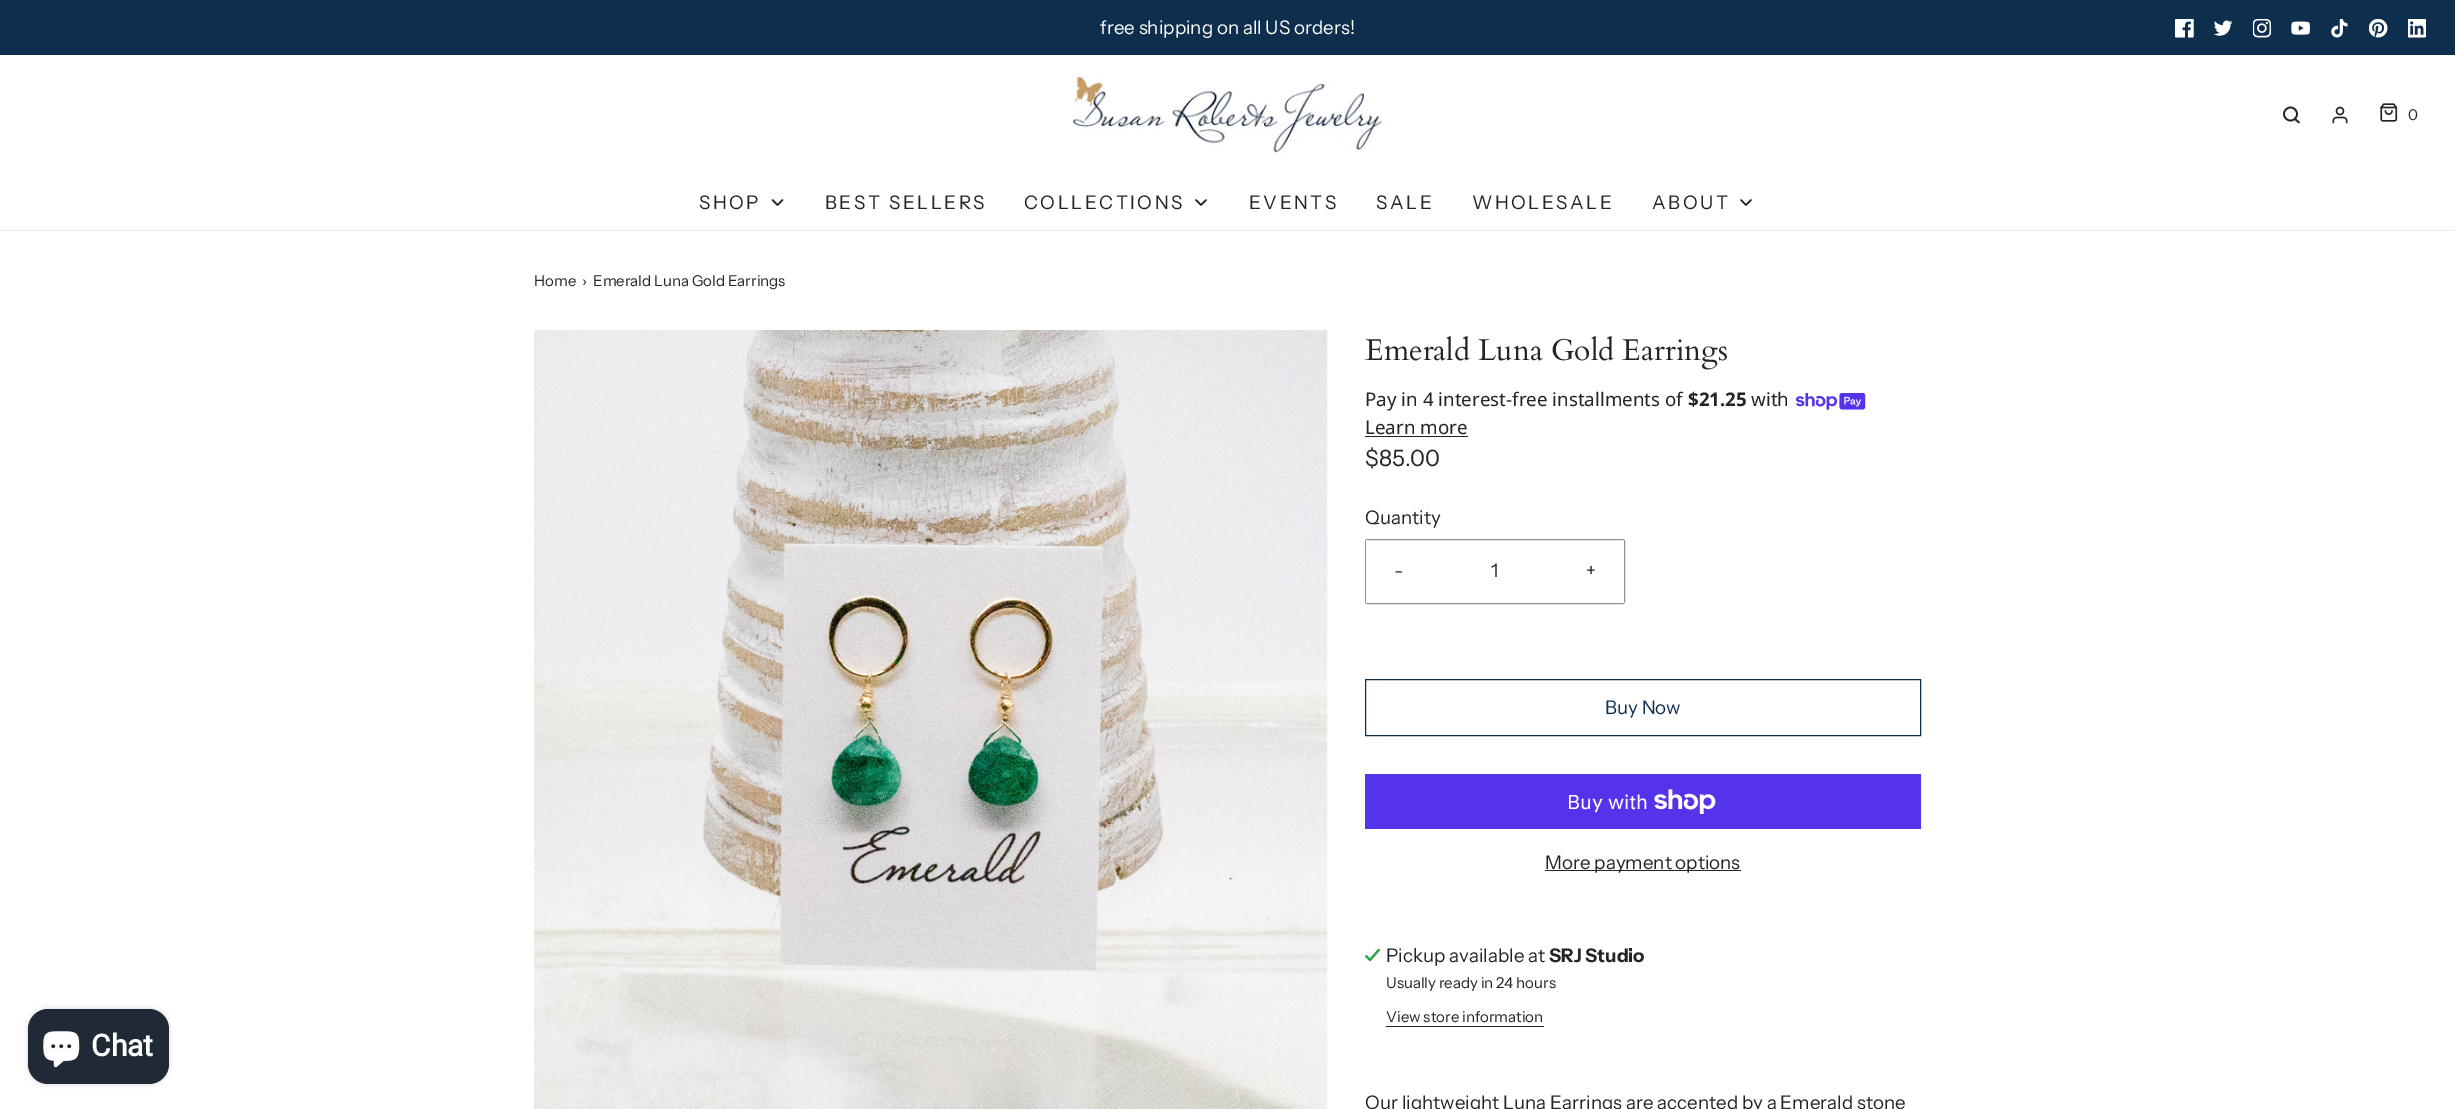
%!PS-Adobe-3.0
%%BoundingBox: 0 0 2455 1109
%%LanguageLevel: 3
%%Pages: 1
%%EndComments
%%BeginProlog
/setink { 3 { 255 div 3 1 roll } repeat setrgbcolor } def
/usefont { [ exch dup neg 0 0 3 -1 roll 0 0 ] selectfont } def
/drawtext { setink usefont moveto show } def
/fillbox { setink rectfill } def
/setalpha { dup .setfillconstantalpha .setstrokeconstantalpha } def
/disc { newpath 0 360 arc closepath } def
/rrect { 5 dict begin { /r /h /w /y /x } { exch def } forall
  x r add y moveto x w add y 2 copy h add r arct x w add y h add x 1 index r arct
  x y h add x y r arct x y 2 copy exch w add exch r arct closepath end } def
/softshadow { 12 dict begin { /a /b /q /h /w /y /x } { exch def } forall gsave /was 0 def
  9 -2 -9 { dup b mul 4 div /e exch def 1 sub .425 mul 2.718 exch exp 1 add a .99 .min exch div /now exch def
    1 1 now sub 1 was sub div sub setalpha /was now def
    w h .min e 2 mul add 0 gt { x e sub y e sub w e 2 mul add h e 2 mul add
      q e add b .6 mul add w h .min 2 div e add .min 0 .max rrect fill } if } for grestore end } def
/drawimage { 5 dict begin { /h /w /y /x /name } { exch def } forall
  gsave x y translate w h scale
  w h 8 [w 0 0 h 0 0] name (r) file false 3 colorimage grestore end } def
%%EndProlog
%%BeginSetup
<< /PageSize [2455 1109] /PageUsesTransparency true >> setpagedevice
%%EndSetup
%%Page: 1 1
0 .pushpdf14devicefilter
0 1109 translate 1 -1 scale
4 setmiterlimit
0 0 2455 1109 255 255 255 fillbox
0 0 0 setink
28 1009 141 75 20 3 0.15 softshadow
32 42 54 setink
28 1009 141 75 20 rrect fill
(assets/img1.rgb) 43 1031 37 37 drawimage
(Chat) 91 1056 /Roboto-Bold 30 255 255 255 drawtext
0 0 2455 55 14 46 77 fillbox
(free shipping on all US orders!) 1100 34 /InstrumentSans-Regular 18.75 255 255 255 drawtext
(assets/img2.rgb) 2175 19 19 19 drawimage
(assets/img3.rgb) 2214 20 19 16 drawimage
(assets/img4.rgb) 2253 19 18 19 drawimage
(assets/img5.rgb) 2291 21 19 14 drawimage
(assets/img6.rgb) 2331 19 17 19 drawimage
(assets/img7.rgb) 2369 19 19 19 drawimage
(assets/img8.rgb) 2408 19 18 19 drawimage
0 230 2455 1 233 233 233 fillbox
(assets/img9.rgb) 1072 74 311 82 drawimage
36 36 36 setink
1.7 setlinewidth
2290.5 114 6.5 disc stroke
1 setlinecap
1 setlinejoin
2299 122.5 moveto 2295 119 lineto stroke
(assets/img10.rgb) 2332 106 16 18 drawimage
(assets/img11.rgb) 2380 103 18 19 drawimage
(0) 2408 120 /InstrumentSans-Regular 15 36 36 36 drawtext
/InstrumentSans-Regular 18.75 usefont
699 209 moveto 2.5 0 (SHOP) ashow
772.5 200 moveto 777.5 205 lineto 782.5 200 lineto stroke
825 209 moveto 2.5 0 (BEST SELLERS) ashow
1024 209 moveto 2.5 0 (COLLECTIONS) ashow
1196 200 moveto 1201 205 lineto 1206 200 lineto stroke
1249 209 moveto 2.5 0 (EVENTS) ashow
1376 209 moveto 2.5 0 (SALE) ashow
1472 209 moveto 2.5 0 (WHOLESALE) ashow
1652 209 moveto 2.5 0 (ABOUT) ashow
1741 200 moveto 1746 205 lineto 1751 200 lineto stroke
(Home) 534 286 /InstrumentSans-Regular 15 36 36 36 drawtext
(›) 582 286 /InstrumentSans-Regular 15 36 36 36 drawtext
(Emerald Luna Gold Earrings) 593 286 /InstrumentSans-Regular 15 36 36 36 drawtext
(assets/img12.rgb) 534 330 794 779 drawimage
(Emerald Luna Gold Earrings) 1365 360 /Cardo-Regular 30 36 36 36 drawtext
(Pay in 4 interest-free installments of) 1365 406 /NotoSans-Regular 18.75 36 36 36 drawtext
($21.25) 1688 406 /NotoSans-Bold 18.75 36 36 36 drawtext
(with) 1751 406 /NotoSans-Regular 18.75 36 36 36 drawtext
(assets/img13.rgb) 1796 393 70 17 drawimage
(Learn more) 1365 434 /NotoSans-Regular 18.75 36 36 36 drawtext
1365 436 103 1 36 36 36 fillbox
($85.00) 1365 466 /InstrumentSans-Regular 22.5 36 36 36 drawtext
(Quantity) 1365 524 /InstrumentSans-Regular 18.75 36 36 36 drawtext
146 146 146 setink
1 setlinewidth
0 setlinecap
0 setlinejoin
1365.5 539.5 259 64 2 rrect stroke
1366 540 1 63 255 255 255 fillbox
(-) 1394 577 /InstrumentSans-Regular 18.75 36 36 36 drawtext
(1) 1491 577 /InstrumentSans-Regular 18.75 36 36 36 drawtext
1623 540 1 63 255 255 255 fillbox
(+) 1586 577 /InstrumentSans-Regular 18.75 36 36 36 drawtext
14 46 77 setink
1365.5 679.5 555 56 rectstroke
(Buy Now) 1605 714 /InstrumentSans-Regular 18.75 14 46 77 drawtext
1365 774 556 55 84 51 235 fillbox
(Buy with) 1567 809 /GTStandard-Regular 20 255 255 255 drawtext
(assets/img14.rgb) 1654 789 62 25 drawimage
1545 870 196 1 36 36 36 fillbox
(More payment options) 1545 869 /InstrumentSans-Regular 18.75 36 36 36 drawtext
(assets/img15.rgb) 1365 948 15 14 drawimage
(Pickup available at) 1386 962 /InstrumentSans-Regular 18.75 36 36 36 drawtext
(SRJ Studio) 1549 962 /InstrumentSans-Bold 18.75 36 36 36 drawtext
(Usually ready in 24 hours) 1386 988 /InstrumentSans-Regular 15 36 36 36 drawtext
(View store information) 1386 1022 /InstrumentSans-Regular 15 36 36 36 drawtext
1386 1026 158 1 36 36 36 fillbox
(Our lightweight Luna Earrings are accented by a Emerald stone) 1365 1109 /InstrumentSans-Regular 18.75 36 36 36 drawtext
.poppdf14devicefilter showpage
%%EOF
